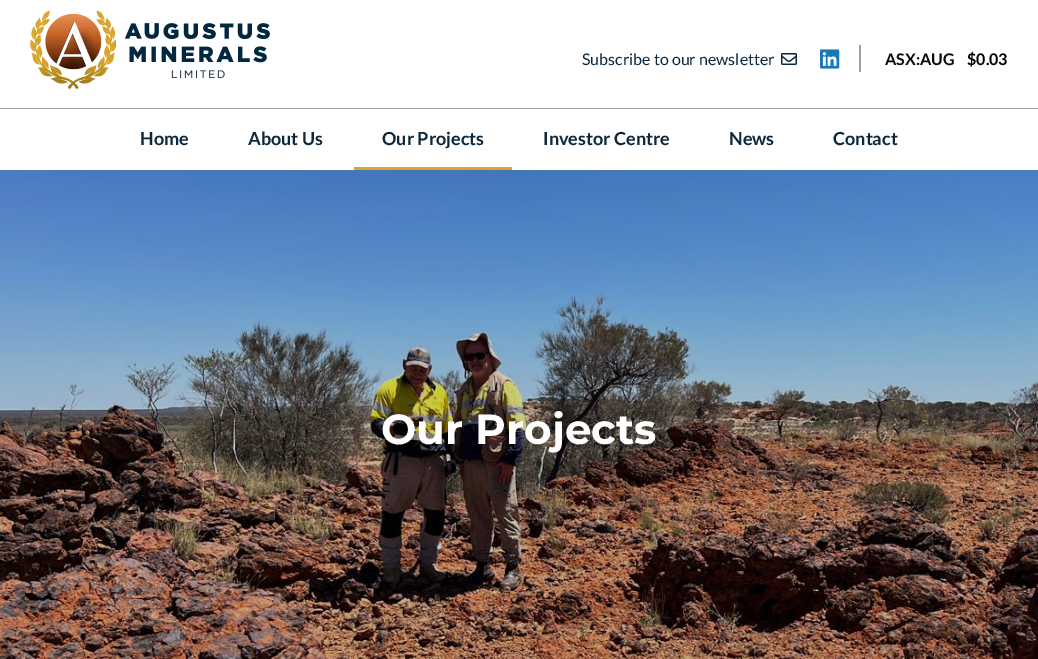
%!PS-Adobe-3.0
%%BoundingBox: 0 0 1038 659
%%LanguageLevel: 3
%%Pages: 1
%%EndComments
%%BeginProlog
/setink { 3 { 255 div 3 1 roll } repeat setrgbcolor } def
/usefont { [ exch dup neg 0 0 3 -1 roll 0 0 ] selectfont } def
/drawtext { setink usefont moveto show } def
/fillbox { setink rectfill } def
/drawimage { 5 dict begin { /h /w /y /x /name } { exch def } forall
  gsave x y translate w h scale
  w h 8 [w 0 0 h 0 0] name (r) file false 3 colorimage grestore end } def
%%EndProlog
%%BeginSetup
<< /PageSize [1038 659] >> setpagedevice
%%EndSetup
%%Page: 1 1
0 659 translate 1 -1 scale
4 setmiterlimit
0 0 1038 659 255 255 255 fillbox
(assets/img1.rgb) 30 10 240 79 drawimage
(Subscribe to our newsletter) 582 65 /Lato-Regular 16 12 40 61 drawtext
(assets/img2.rgb) 781 53 16 12 drawimage
(assets/img3.rgb) 820 49 20 20 drawimage
859 45 2 27 160 160 160 fillbox
(ASX:AUG) 885 65 /Lato-Bold 16 10 10 10 drawtext
($0.03) 967 65 /Lato-Bold 16 0 0 0 drawtext
0 108 1038 1 160 160 160 fillbox
(Home) 140 145 /Lato-Bold 18 12 40 61 drawtext
(About Us) 248 145 /Lato-Bold 18 12 40 61 drawtext
354 167 158 3 219 166 40 fillbox
(Our Projects) 382 145 /Lato-Bold 18 12 40 61 drawtext
(Investor Centre) 543 145 /Lato-Bold 18 12 40 61 drawtext
(News) 729 145 /Lato-Bold 18 12 40 61 drawtext
(Contact) 833 145 /Lato-Bold 18 12 40 61 drawtext
(assets/img4.rgb) 0 170 1038 489 drawimage
(Our Projects) 381 444 /Montserrat-Bold 42 255 255 255 drawtext
showpage
%%EOF
